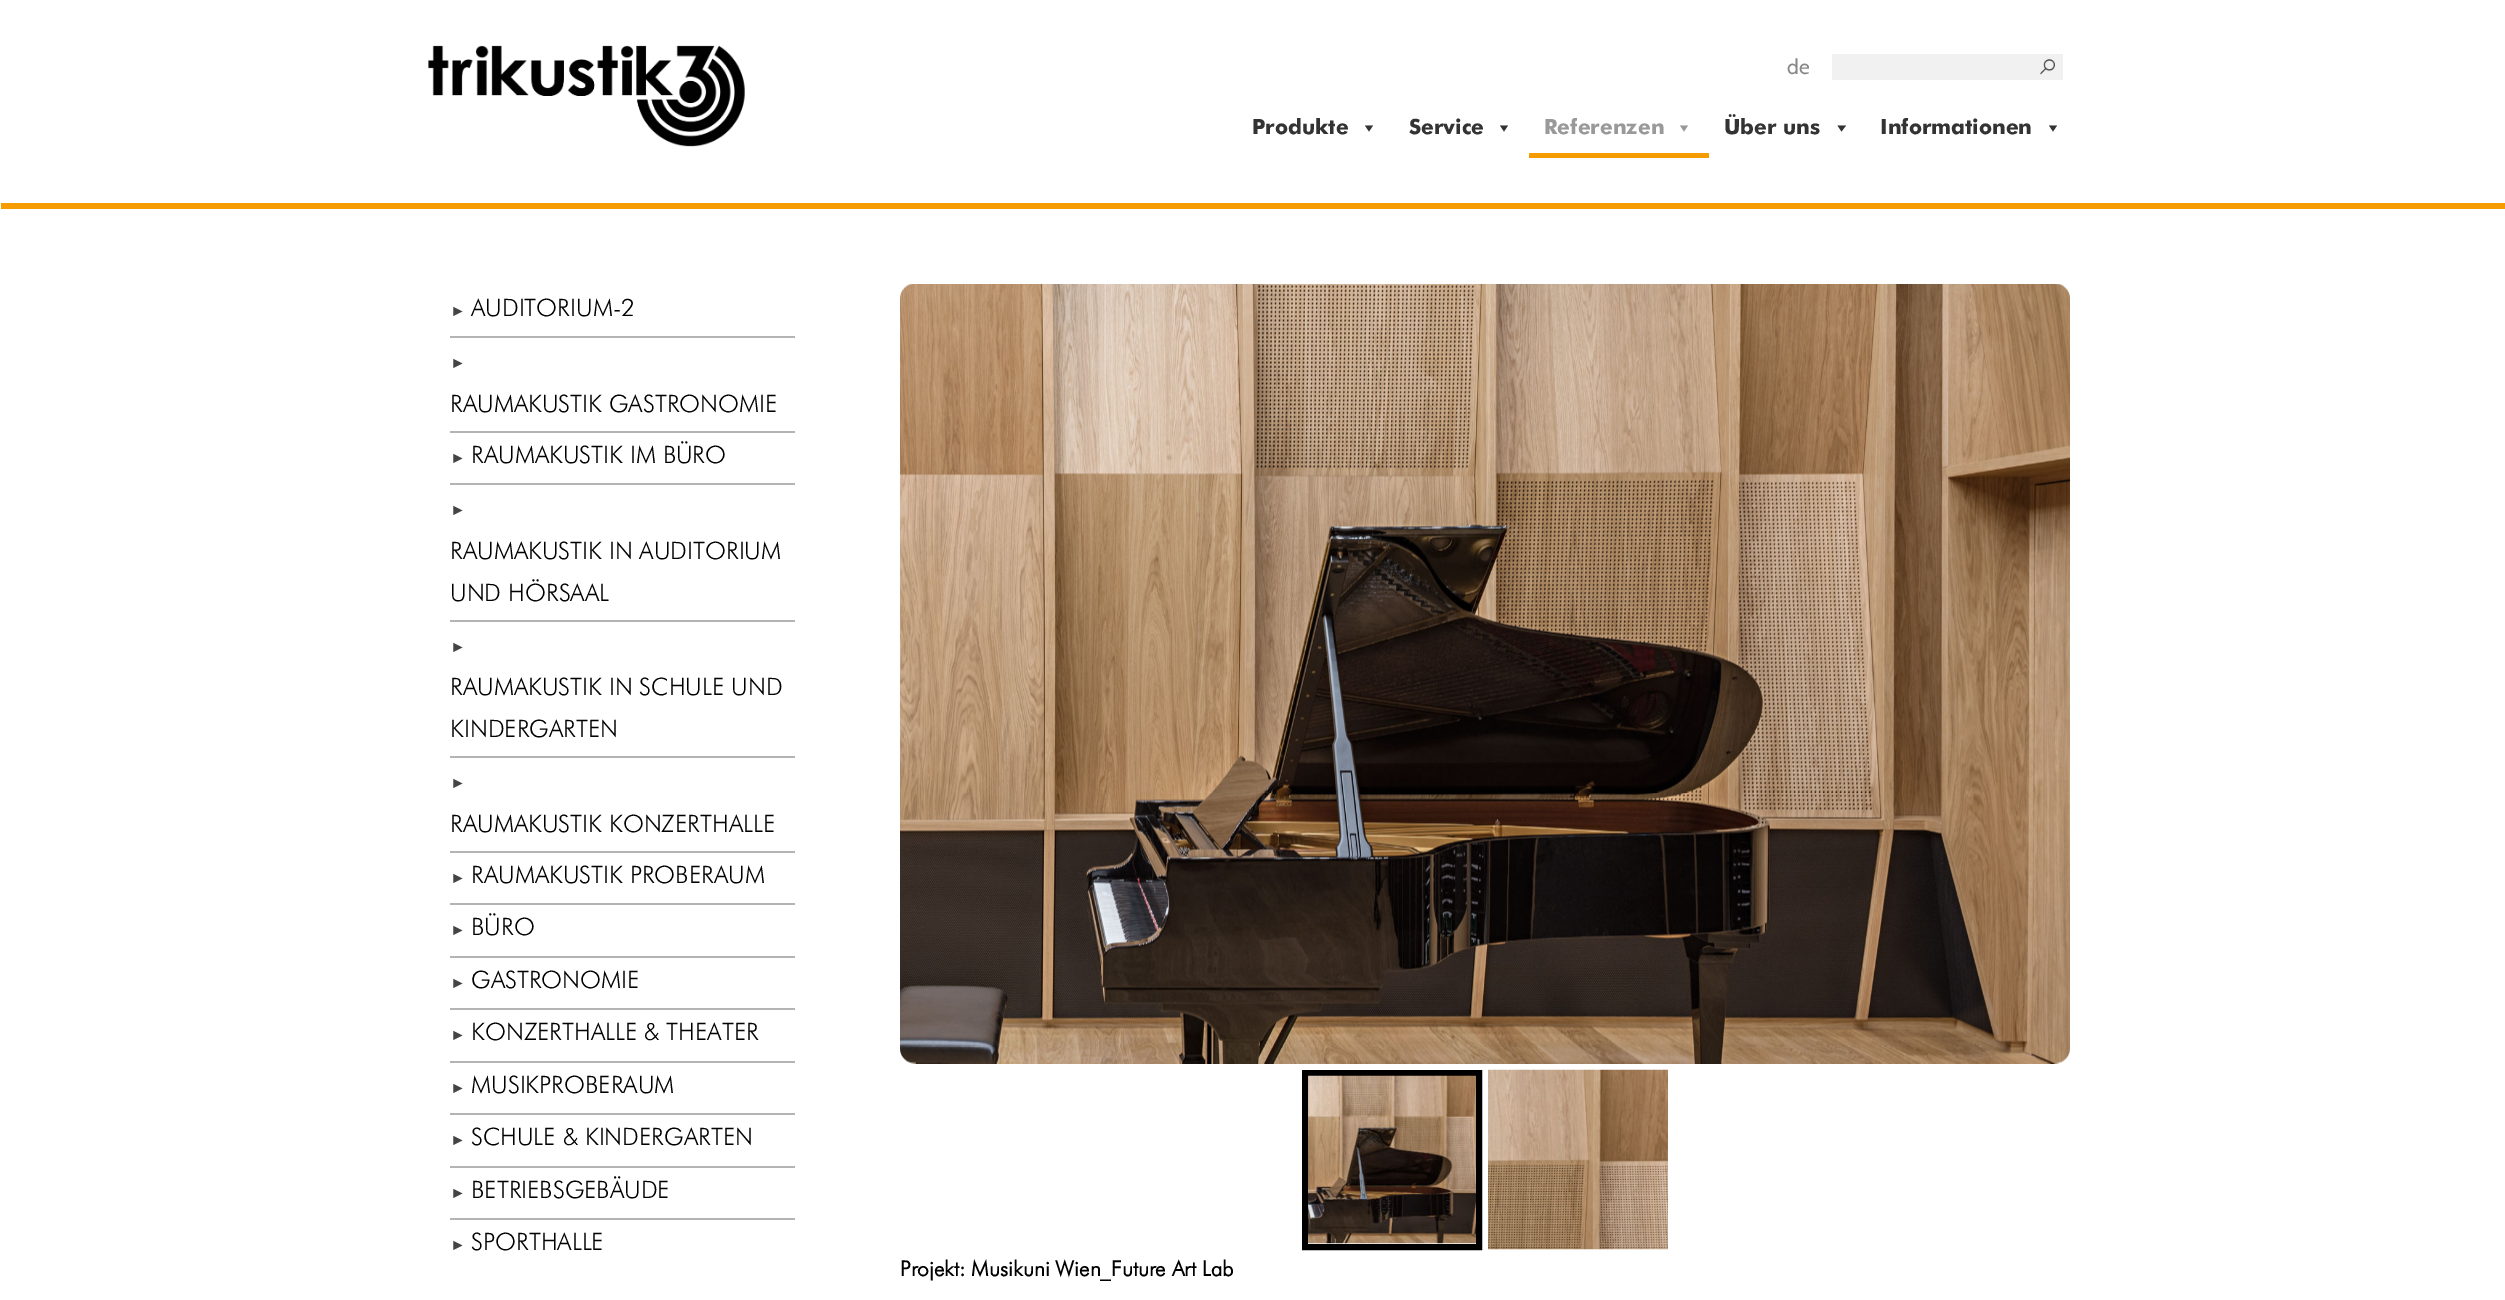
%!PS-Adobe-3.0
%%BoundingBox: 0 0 2505 1300
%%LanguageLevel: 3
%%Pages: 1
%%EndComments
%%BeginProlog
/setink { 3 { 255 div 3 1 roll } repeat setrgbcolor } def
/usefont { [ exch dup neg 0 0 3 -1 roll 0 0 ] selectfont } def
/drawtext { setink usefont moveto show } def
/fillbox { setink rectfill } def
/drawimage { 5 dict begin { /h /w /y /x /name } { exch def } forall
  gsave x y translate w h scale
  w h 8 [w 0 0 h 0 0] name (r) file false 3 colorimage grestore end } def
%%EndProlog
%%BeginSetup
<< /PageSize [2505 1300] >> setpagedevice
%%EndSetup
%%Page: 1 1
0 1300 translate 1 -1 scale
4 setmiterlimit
0 0 2505 1300 255 255 255 fillbox
0 203 2505 6 245 156 0 fillbox
0 203 1 6 255 255 255 fillbox
(assets/img1.rgb) 428 45 317 102 drawimage
(de) 1787 74 /Cabin-Regular 21 136 136 136 drawtext
1832 54 231 26 241 241 241 fillbox
(assets/img2.rgb) 2040 59 15 16 drawimage
(Produkte) 1252 134 /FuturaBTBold-Regular 21 51 51 51 drawtext
1373 125.5 moveto 1369 131.5 lineto 1365 125.5 lineto closepath fill
(Service) 1409 134 /FuturaBTBold-Regular 21 51 51 51 drawtext
1508 125.5 moveto 1504 131.5 lineto 1500 125.5 lineto closepath fill
1529 153 180 5 245 156 0 fillbox
(Referenzen) 1544 134 /FuturaBTBold-Regular 21 153 153 153 drawtext
1688 125.5 moveto 1684 131.5 lineto 1680 125.5 lineto closepath fill
(Über uns) 1724 134 /FuturaBTBold-Regular 21 51 51 51 drawtext
1846 125.5 moveto 1841.5 131.5 lineto 1837.5 125.5 lineto closepath fill
(Informationen) 1880 134 /FuturaBTBold-Regular 21 51 51 51 drawtext
2057 125.5 moveto 2053 131.5 lineto 2049 125.5 lineto closepath fill
450 336 345 2 180 180 180 fillbox
(►) 450 316 /LiberationSans-Regular 16 68 68 68 drawtext
(AUDITORIUM-2) 471 316 /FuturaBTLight-Regular 24 0 0 0 drawtext
450 431 345 2 180 180 180 fillbox
(►) 450 368 /LiberationSans-Regular 16 68 68 68 drawtext
(RAUMAKUSTIK GASTRONOMIE) 450 412 /FuturaBTLight-Regular 24 0 0 0 drawtext
450 483 345 2 180 180 180 fillbox
(►) 450 463 /LiberationSans-Regular 16 68 68 68 drawtext
(RAUMAKUSTIK IM BÜRO) 471 463 /FuturaBTLight-Regular 24 0 0 0 drawtext
450 620 345 2 180 180 180 fillbox
(►) 450 515 /LiberationSans-Regular 16 68 68 68 drawtext
(RAUMAKUSTIK IN AUDITORIUM) 450 559 /FuturaBTLight-Regular 24 0 0 0 drawtext
(UND HÖRSAAL) 450 601 /FuturaBTLight-Regular 24 0 0 0 drawtext
450 756 345 2 180 180 180 fillbox
(►) 450 652 /LiberationSans-Regular 16 68 68 68 drawtext
(RAUMAKUSTIK IN SCHULE UND) 450 695 /FuturaBTLight-Regular 24 0 0 0 drawtext
(KINDERGARTEN) 450 737 /FuturaBTLight-Regular 24 0 0 0 drawtext
450 851 345 2 180 180 180 fillbox
(►) 450 788 /LiberationSans-Regular 16 68 68 68 drawtext
(RAUMAKUSTIK KONZERTHALLE) 450 832 /FuturaBTLight-Regular 24 0 0 0 drawtext
450 903 345 2 180 180 180 fillbox
(►) 450 883 /LiberationSans-Regular 16 68 68 68 drawtext
(RAUMAKUSTIK PROBERAUM) 471 883 /FuturaBTLight-Regular 24 0 0 0 drawtext
450 956 345 2 180 180 180 fillbox
(►) 450 935 /LiberationSans-Regular 16 68 68 68 drawtext
(BÜRO) 471 935 /FuturaBTLight-Regular 24 0 0 0 drawtext
450 1008 345 2 180 180 180 fillbox
(►) 450 988 /LiberationSans-Regular 16 68 68 68 drawtext
(GASTRONOMIE) 471 988 /FuturaBTLight-Regular 24 0 0 0 drawtext
450 1061 345 2 180 180 180 fillbox
(►) 450 1040 /LiberationSans-Regular 16 68 68 68 drawtext
(KONZERTHALLE & THEATER) 471 1040 /FuturaBTLight-Regular 24 0 0 0 drawtext
450 1113 345 2 180 180 180 fillbox
(►) 450 1093 /LiberationSans-Regular 16 68 68 68 drawtext
(MUSIKPROBERAUM) 471 1093 /FuturaBTLight-Regular 24 0 0 0 drawtext
450 1166 345 2 180 180 180 fillbox
(►) 450 1145 /LiberationSans-Regular 16 68 68 68 drawtext
(SCHULE & KINDERGARTEN) 471 1145 /FuturaBTLight-Regular 24 0 0 0 drawtext
450 1218 345 2 180 180 180 fillbox
(►) 450 1198 /LiberationSans-Regular 16 68 68 68 drawtext
(BETRIEBSGEBÄUDE) 471 1198 /FuturaBTLight-Regular 24 0 0 0 drawtext
(►) 450 1250 /LiberationSans-Regular 16 68 68 68 drawtext
(SPORTHALLE) 471 1250 /FuturaBTLight-Regular 24 0 0 0 drawtext
(assets/img3.rgb) 900 284 1170 780 drawimage
6 setlinewidth
1305 1073 174 174 rectstroke
(assets/img4.rgb) 1308 1075 168 169 drawimage
(assets/img5.rgb) 1488 1069 180 181 drawimage
(Projekt: Musikuni Wien_Future Art Lab) 900 1276 /FuturaBTLight-Bold 21 0 0 0 drawtext
showpage
%%EOF
